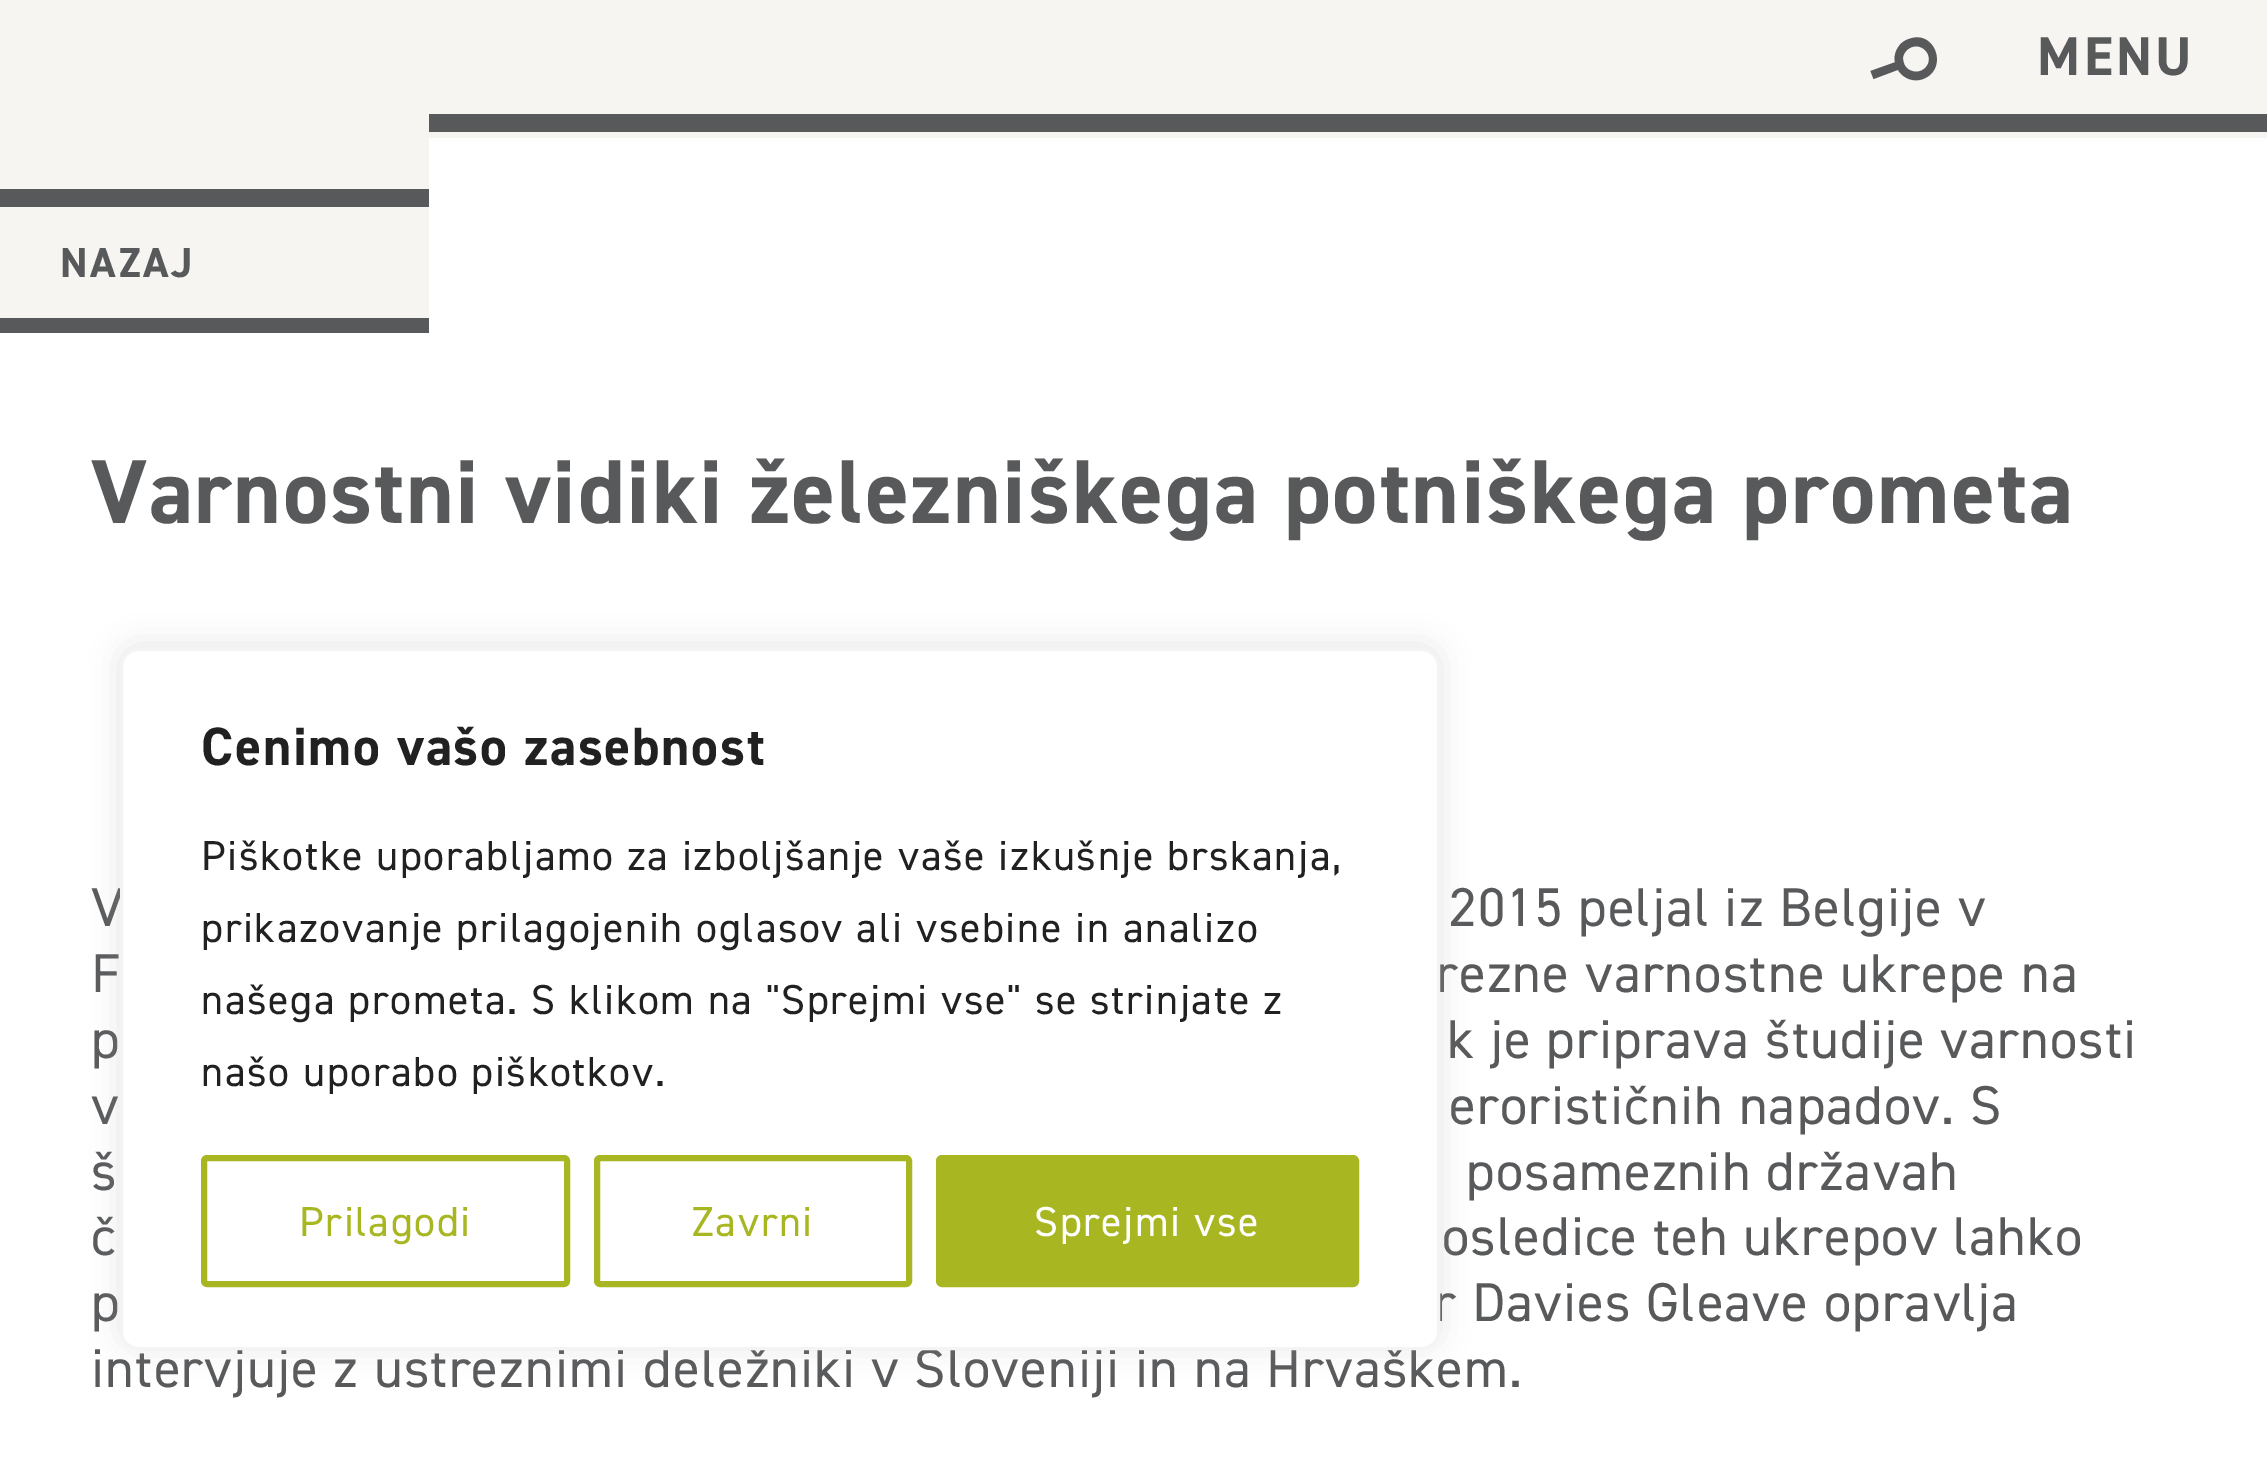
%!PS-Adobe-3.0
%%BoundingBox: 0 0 2267 1469
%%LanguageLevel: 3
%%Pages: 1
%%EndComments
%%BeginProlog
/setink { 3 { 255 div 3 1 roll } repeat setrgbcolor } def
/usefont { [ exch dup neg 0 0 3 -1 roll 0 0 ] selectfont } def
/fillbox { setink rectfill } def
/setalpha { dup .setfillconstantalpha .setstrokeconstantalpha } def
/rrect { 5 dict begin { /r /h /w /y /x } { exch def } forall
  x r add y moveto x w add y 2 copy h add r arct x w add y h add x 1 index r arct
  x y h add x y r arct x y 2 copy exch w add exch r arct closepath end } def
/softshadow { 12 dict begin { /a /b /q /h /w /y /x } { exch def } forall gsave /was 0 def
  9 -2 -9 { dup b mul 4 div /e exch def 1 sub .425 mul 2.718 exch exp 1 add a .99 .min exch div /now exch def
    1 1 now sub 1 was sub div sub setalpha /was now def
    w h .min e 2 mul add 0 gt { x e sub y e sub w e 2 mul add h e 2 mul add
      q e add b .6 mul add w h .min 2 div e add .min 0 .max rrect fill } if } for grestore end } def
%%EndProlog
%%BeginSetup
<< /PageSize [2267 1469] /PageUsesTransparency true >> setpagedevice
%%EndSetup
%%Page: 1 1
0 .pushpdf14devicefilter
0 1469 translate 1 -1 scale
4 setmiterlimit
0 0 2267 1469 247 245 242 fillbox
429 114 1838 18 88 89 91 fillbox
1909 39 moveto 1935 29 1949 69 1923 79 curveto 1904 86 1886 63 1899 46 curveto 1901 43 1905 40 1909 39 curveto closepath 1928 64 moveto 1933 52 1918 40 1907 50 curveto 1905 52 1903 55 1903 58 curveto 1903 63 1905 67 1908 69 curveto 1915 74 1924 72 1928 64 curveto closepath fill
1898.5 61 moveto 1901.5 68.5 lineto 1873.5 79 lineto 1870.5 71 lineto closepath fill
/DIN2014-Bold 54.85 usefont
2037 75 moveto 3.5 0 (MENU) ashow
0 138 2267 1331 255 255 255 fillbox
0 138 429 51 247 245 242 fillbox
0 189 429 18 88 89 91 fillbox
0 207 429 111 247 245 242 fillbox
0 318 429 15 88 89 91 fillbox
/DIN2014-Bold 42 usefont
60 277 moveto 2.75 0 (NAZAJ) ashow
/DIN2014-Bold 91 usefont
91 523 moveto 1.65 0 (Varnostni vidiki železniškega potniškega prometa) ashow
/DIN2014-Regular 54.85 usefont
91 926 moveto 1.1 0 (V) ashow
1449 926 moveto 1.1 0 (2015 peljal iz Belgije v) ashow
91 992 moveto 1.1 0 (F) ashow
1436 992 moveto 1.1 0 (rezne varnostne ukrepe na) ashow
91 1058 moveto 1.1 0 (p) ashow
1447 1058 moveto 1.1 0 (k je priprava študije varnosti) ashow
91 1124 moveto 1.1 0 (v) ashow
1449 1124 moveto 1.1 0 (erorističnih napadov. S) ashow
91 1190 moveto 1.1 0 (š) ashow
1466 1190 moveto 1.1 0 (posameznih državah) ashow
91 1255 moveto -0.25 0 32 1.1 0 (č) awidthshow
1442 1255 moveto -0.25 0 32 1.1 0 (osledice teh ukrepov lahko) awidthshow
91 1321 moveto 1.1 0 (p) ashow
1434 1321 moveto 1.1 0 (r Davies Gleave opravlja) ashow
91 1387 moveto -0.25 0 32 1.1 0 (intervjuje z ustreznimi deležniki v Sloveniji in na Hrvaškem.) awidthshow
172 171 171 setink
120 645 1320 702 18 15 0.3 softshadow
255 255 255 setink
121.5 649.5 1317 699 16.5 rrect gsave fill grestore
244 244 244 setink
3 setlinewidth
stroke
/DIN2014-Bold 54 usefont
33 33 33 setink
201 765 moveto 1.65 0 (Cenimo vašo zasebnost) ashow
/DIN2014-Regular 42 usefont
201 870 moveto 1.65 0 (Piškotke uporabljamo za izboljšanje vaše izkušnje brskanja,) ashow
201 942 moveto 1.65 0 (prikazovanje prilagojenih oglasov ali vsebine in analizo) ashow
201 1014 moveto 1.65 0 (našega prometa. S klikom na "Sprejmi vse" se strinjate z) ashow
201 1086 moveto 1.65 0 (našo uporabo piškotkov.) ashow
168 182 33 setink
6 setlinewidth
204 1158 363 126 3 rrect stroke
299 1236 moveto 1.65 0 (Prilagodi) ashow
597 1158 312 126 3 rrect stroke
692 1236 moveto 1.65 0 (Zavrni) ashow
939 1158 417 126 3 rrect gsave fill grestore
stroke
255 255 255 setink
1034 1236 moveto 1.65 0 (Sprejmi vse) ashow
.poppdf14devicefilter showpage
%%EOF
